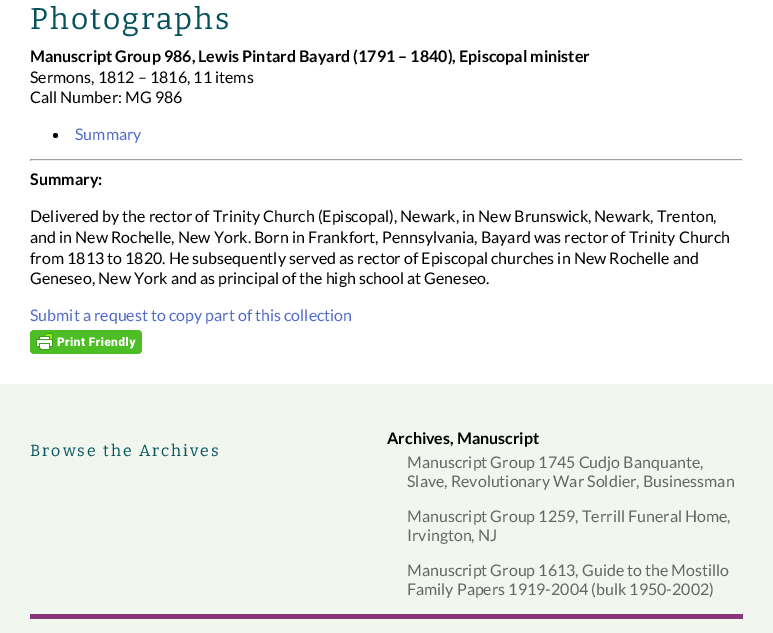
%!PS-Adobe-3.0
%%BoundingBox: 0 0 773 633
%%LanguageLevel: 3
%%Pages: 1
%%EndComments
%%BeginProlog
/setink { 3 { 255 div 3 1 roll } repeat setrgbcolor } def
/usefont { [ exch dup neg 0 0 3 -1 roll 0 0 ] selectfont } def
/drawtext { setink usefont moveto show } def
/fillbox { setink rectfill } def
/disc { newpath 0 360 arc closepath } def
/drawimage { 5 dict begin { /h /w /y /x /name } { exch def } forall
  gsave x y translate w h scale
  w h 8 [w 0 0 h 0 0] name (r) file false 3 colorimage grestore end } def
%%EndProlog
%%BeginSetup
<< /PageSize [773 633] >> setpagedevice
%%EndSetup
%%Page: 1 1
0 633 translate 1 -1 scale
4 setmiterlimit
0 0 773 633 255 255 255 fillbox
/Bitter-Regular 30 usefont
5 81 94 setink
30 29 moveto 2 0 (Photographs) ashow
(Manuscript Group 986, Lewis Pintard Bayard \(1791 – 1840\), Episcopal minister) 30 62 /Lato-Bold 16 0 0 0 drawtext
(Sermons, 1812 – 1816, 11 items) 30 83 /Lato-Regular 16 0 0 0 drawtext
(Call Number: MG 986) 30 103 /Lato-Regular 16 0 0 0 drawtext
55.5 135.5 2.5 disc fill
(Summary) 75 140 /Lato-Regular 16 82 107 204 drawtext
30 159 713 1 159 159 159 fillbox
742 159 1 2 238 238 238 fillbox
30 160 713 1 238 238 238 fillbox
30 159 1 2 159 159 159 fillbox
(Summary:) 30 185 /Lato-Bold 16 0 0 0 drawtext
(Delivered by the rector of Trinity Church \(Episcopal\), Newark, in New Brunswick, Newark, Trenton,) 30 222 /Lato-Regular 16 0 0 0 drawtext
(and in New Rochelle, New York. Born in Frankfort, Pennsylvania, Bayard was rector of Trinity Church) 30 243 /Lato-Regular 16 0 0 0 drawtext
(from 1813 to 1820. He subsequently served as rector of Episcopal churches in New Rochelle and) 30 264 /Lato-Regular 16 0 0 0 drawtext
(Geneseo, New York and as principal of the high school at Geneseo.) 30 284 /Lato-Regular 16 0 0 0 drawtext
(Submit a request to copy part of this collection) 30 321 /Lato-Regular 16 82 107 204 drawtext
(assets/img1.rgb) 30 330 112 24 drawimage
0 384 773 249 241 247 239 fillbox
30 614 713 5 135 54 121 fillbox
/Bitter-Regular 16 usefont
5 81 94 setink
30 456 moveto 2 0 (Browse the Archives) ashow
(Archives, Manuscript) 387 444 /Lato-Bold 16 0 0 0 drawtext
(Manuscript Group 1745 Cudjo Banquante,) 407 468 /Lato-Regular 16 102 102 102 drawtext
(Slave, Revolutionary War Soldier, Businessman) 407 487 /Lato-Regular 16 102 102 102 drawtext
(Manuscript Group 1259, Terrill Funeral Home,) 407 522 /Lato-Regular 16 102 102 102 drawtext
(Irvington, NJ) 407 541 /Lato-Regular 16 102 102 102 drawtext
(Manuscript Group 1613, Guide to the Mostillo) 407 576 /Lato-Regular 16 102 102 102 drawtext
(Family Papers 1919-2004 \(bulk 1950-2002\)) 407 595 /Lato-Regular 16 102 102 102 drawtext
showpage
%%EOF
